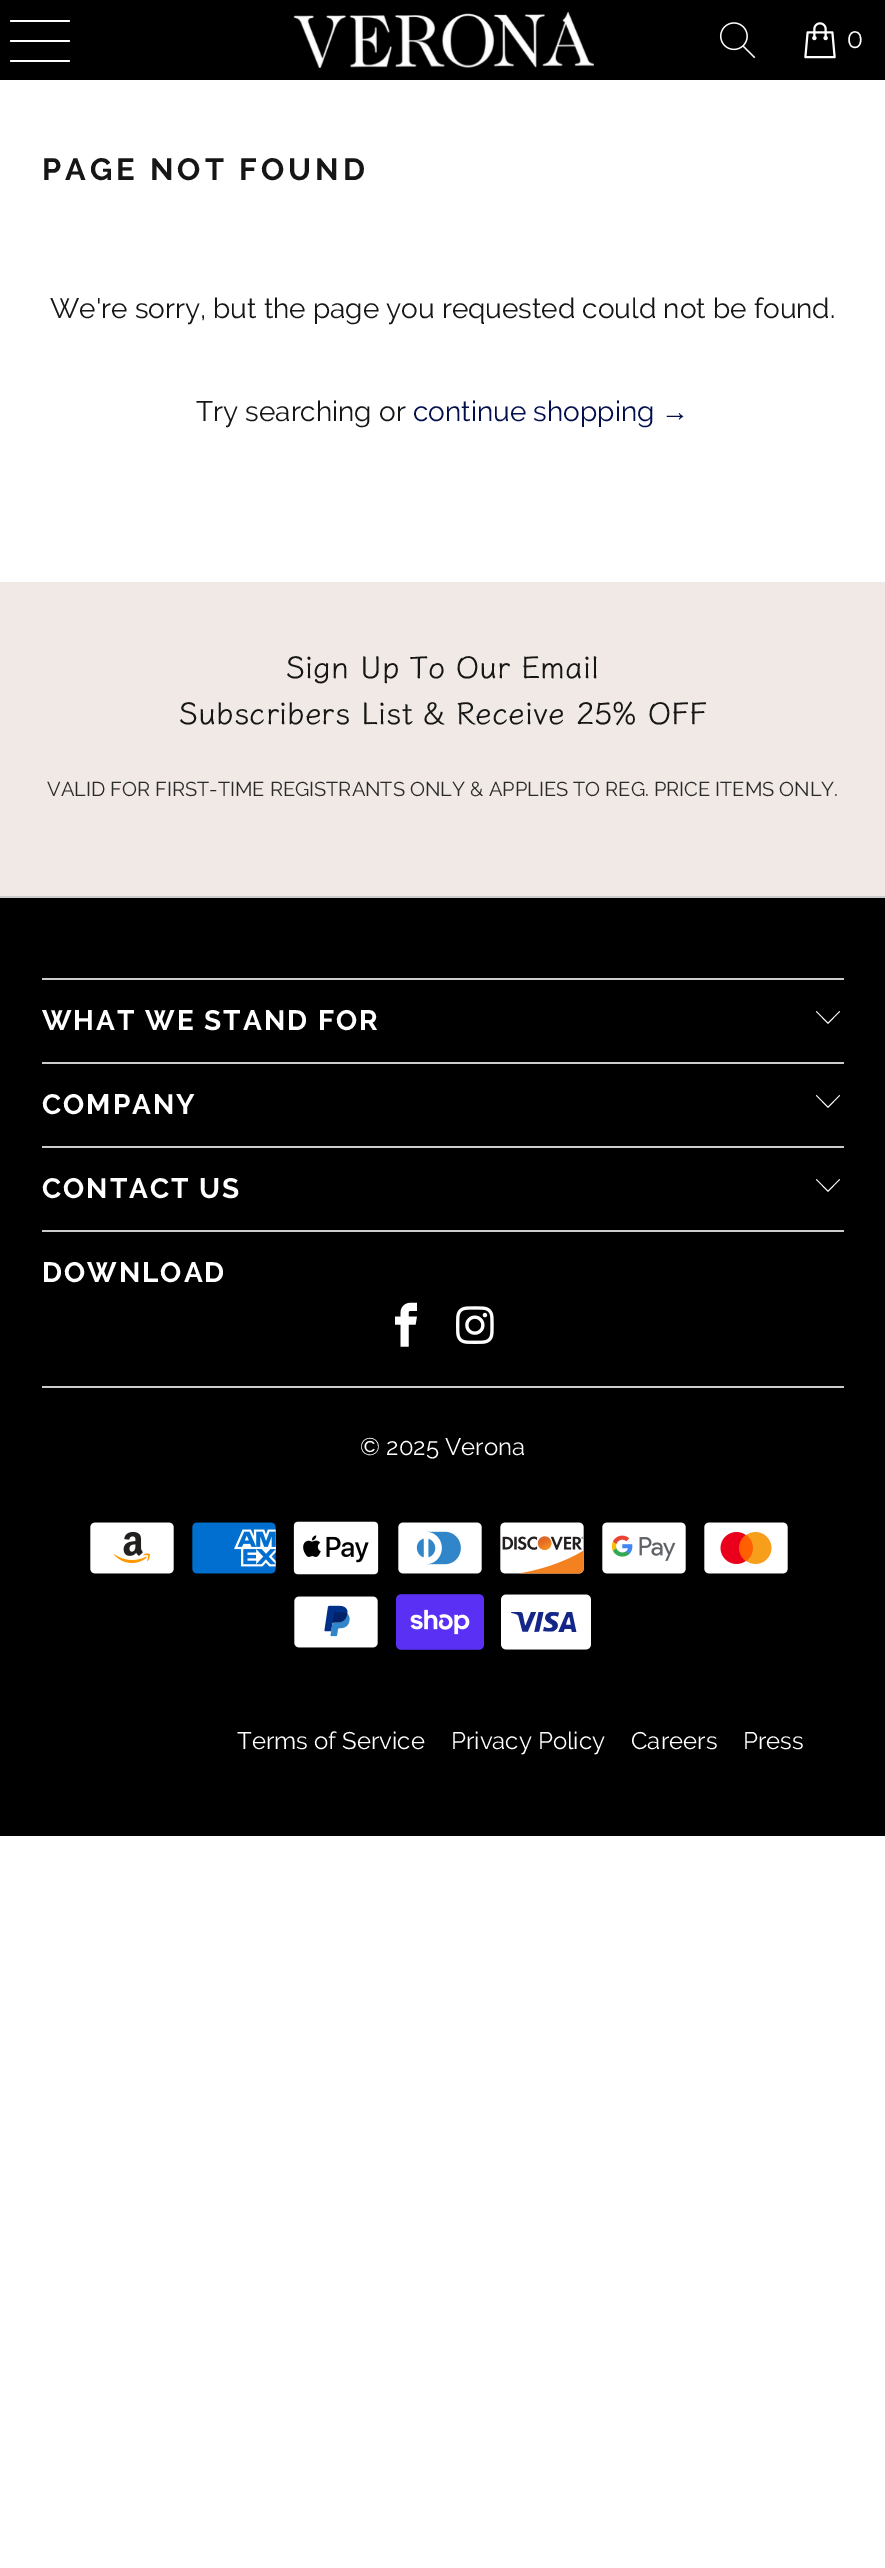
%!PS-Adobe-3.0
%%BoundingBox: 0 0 885 2568
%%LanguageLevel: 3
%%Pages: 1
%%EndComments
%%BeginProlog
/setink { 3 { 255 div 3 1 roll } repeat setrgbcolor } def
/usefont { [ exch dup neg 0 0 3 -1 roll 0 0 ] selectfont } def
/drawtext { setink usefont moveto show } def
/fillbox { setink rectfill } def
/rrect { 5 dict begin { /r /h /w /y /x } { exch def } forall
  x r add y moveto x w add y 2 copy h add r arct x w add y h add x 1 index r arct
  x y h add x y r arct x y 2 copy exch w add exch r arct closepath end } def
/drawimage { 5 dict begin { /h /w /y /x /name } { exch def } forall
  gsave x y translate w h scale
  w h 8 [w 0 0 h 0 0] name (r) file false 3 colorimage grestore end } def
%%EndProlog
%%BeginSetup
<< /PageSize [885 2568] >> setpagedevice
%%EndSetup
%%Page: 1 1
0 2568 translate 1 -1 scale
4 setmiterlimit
0 0 885 2568 255 255 255 fillbox
0 0 885 80 0 0 0 fillbox
255 255 255 setink
10 20 60 2 1 rrect fill
10 40 60 2 1 rrect fill
10 60 60 2 1 rrect fill
(assets/img1.rgb) 293 12 301 56 drawimage
(assets/img2.rgb) 719 22 37 37 drawimage
(assets/img3.rgb) 804 22 32 37 drawimage
/Montserrat-Regular 24 usefont
847 48 moveto 2 0 (0) ashow
/Raleway-Bold 30.75 usefont
22 22 22 setink
42 180 moveto 4 0 (PAGE NOT FOUND) ashow
(We're sorry, but the page you requested could not be found.) 50 318 /Raleway-Regular 28 22 22 22 drawtext
(Try searching or) 196 421 /Raleway-Regular 28 22 22 22 drawtext
(continue shopping) 413 421 /Raleway-Regular 28 2 15 76 drawtext
(→) 661 421 /LiberationSans-Regular 28 2 15 76 drawtext
0 582 885 314 240 233 229 fillbox
(Sign Up To Our Email) 286 678 /KleeOne-SemiBold 30.75 22 22 22 drawtext
(Subscribers List & Receive 25% OFF) 179 724 /KleeOne-SemiBold 30.75 22 22 22 drawtext
(VALID FOR FIRST-TIME REGISTRANTS ONLY & APPLIES TO REG. PRICE ITEMS ONLY.) 47 796 /Raleway-Regular 20 43 42 42 drawtext
0 898 885 938 0 0 0 fillbox
0 896 885 2 204 204 204 fillbox
42 978 802 2 204 204 204 fillbox
/Raleway-Bold 28 usefont
255 255 255 setink
42 1030 moveto 2 0 (WHAT WE STAND FOR) ashow
828 1024 moveto 816 1011.5 lineto 816.5 1011 lineto 828 1022.5 lineto 839.5 1011 lineto 840 1011.5 lineto closepath fill
42 1062 802 2 204 204 204 fillbox
255 255 255 setink
42 1114 moveto 2 0 (COMPANY) ashow
828 1108 moveto 816 1095.5 lineto 816.5 1095 lineto 828 1106.5 lineto 839.5 1095 lineto 840 1095.5 lineto closepath fill
42 1146 802 2 204 204 204 fillbox
255 255 255 setink
42 1198 moveto 2 0 (CONTACT US) ashow
828 1192 moveto 816 1179.5 lineto 816.5 1179 lineto 828 1190.5 lineto 839.5 1179 lineto 840 1179.5 lineto closepath fill
42 1230 802 2 204 204 204 fillbox
255 255 255 setink
42 1282 moveto 2 0 (DOWNLOAD) ashow
(assets/img4.rgb) 395 1302 22 45 drawimage
(assets/img5.rgb) 456 1306 38 38 drawimage
42 1386 802 2 204 204 204 fillbox
(© 2025 Verona) 360 1455 /Raleway-Regular 24 255 255 255 drawtext
(assets/img6.rgb) 90 1522 84 52 drawimage
(assets/img7.rgb) 192 1522 84 52 drawimage
(assets/img8.rgb) 293 1521 86 54 drawimage
(assets/img9.rgb) 398 1522 84 52 drawimage
(assets/img10.rgb) 500 1522 84 52 drawimage
(assets/img11.rgb) 602 1522 84 52 drawimage
(assets/img12.rgb) 704 1522 84 52 drawimage
(assets/img13.rgb) 294 1596 84 52 drawimage
(assets/img14.rgb) 396 1594 88 56 drawimage
(assets/img15.rgb) 501 1594 90 56 drawimage
(Terms of Service) 237 1749 /Raleway-Regular 24 255 255 255 drawtext
(Privacy Policy) 451 1749 /Raleway-Regular 24 255 255 255 drawtext
(Careers) 631 1749 /Raleway-Regular 24 255 255 255 drawtext
(Press) 743 1749 /Raleway-Regular 24 255 255 255 drawtext
showpage
%%EOF
